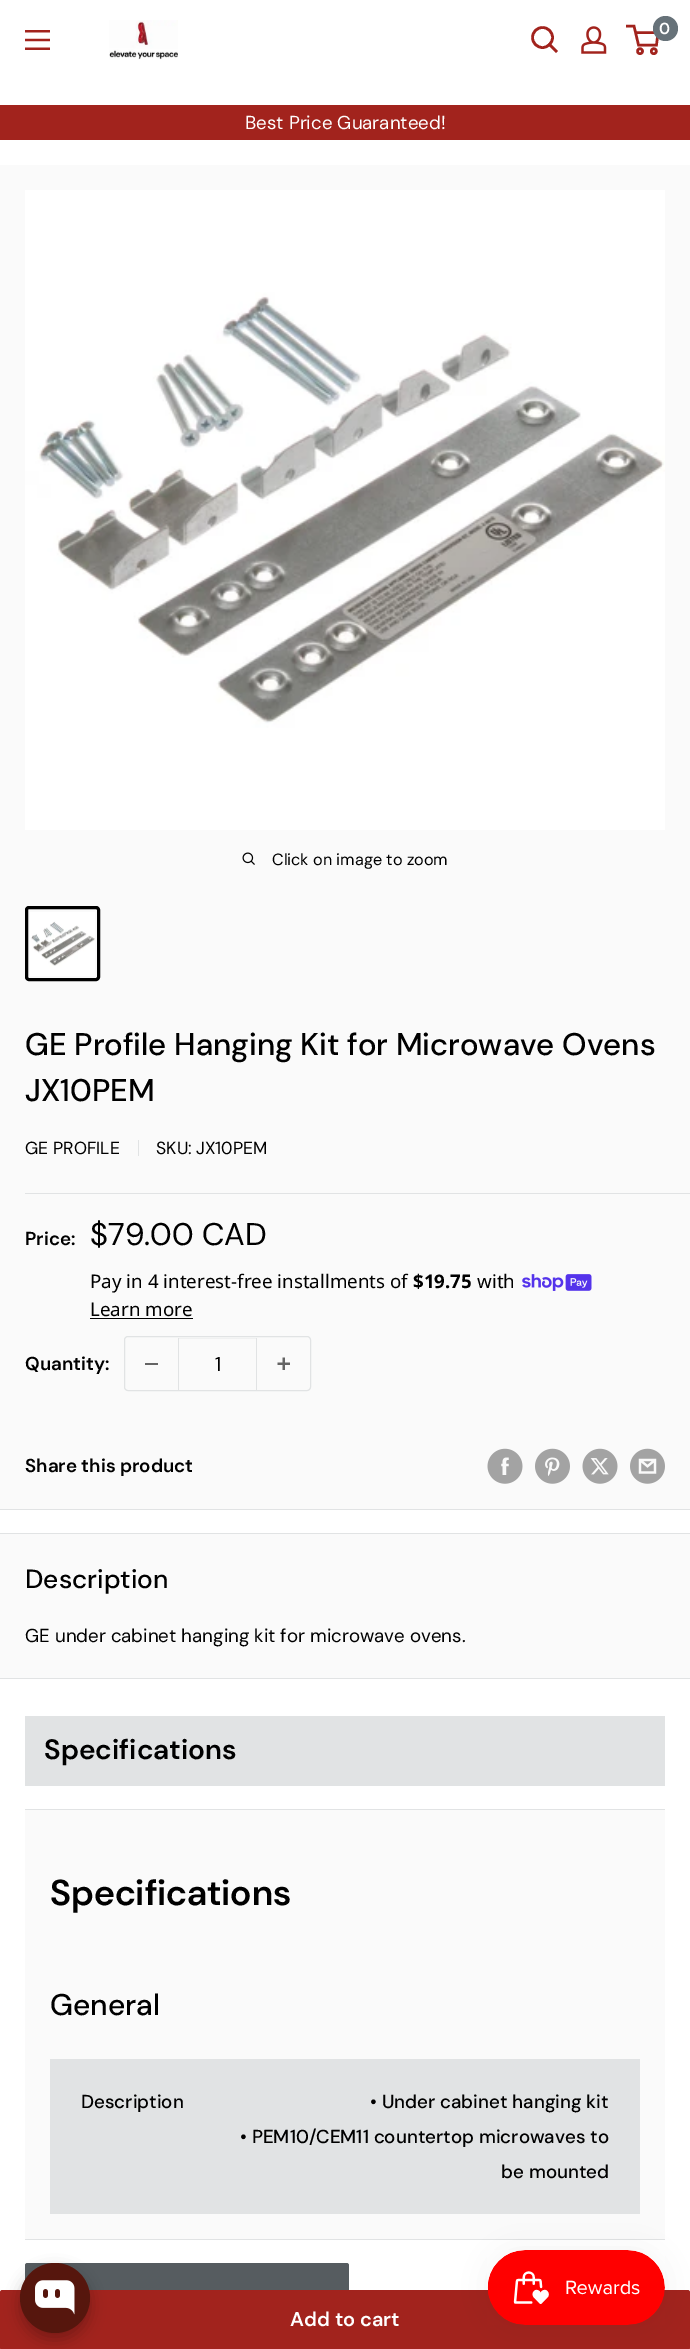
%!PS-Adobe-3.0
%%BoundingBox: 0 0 690 2349
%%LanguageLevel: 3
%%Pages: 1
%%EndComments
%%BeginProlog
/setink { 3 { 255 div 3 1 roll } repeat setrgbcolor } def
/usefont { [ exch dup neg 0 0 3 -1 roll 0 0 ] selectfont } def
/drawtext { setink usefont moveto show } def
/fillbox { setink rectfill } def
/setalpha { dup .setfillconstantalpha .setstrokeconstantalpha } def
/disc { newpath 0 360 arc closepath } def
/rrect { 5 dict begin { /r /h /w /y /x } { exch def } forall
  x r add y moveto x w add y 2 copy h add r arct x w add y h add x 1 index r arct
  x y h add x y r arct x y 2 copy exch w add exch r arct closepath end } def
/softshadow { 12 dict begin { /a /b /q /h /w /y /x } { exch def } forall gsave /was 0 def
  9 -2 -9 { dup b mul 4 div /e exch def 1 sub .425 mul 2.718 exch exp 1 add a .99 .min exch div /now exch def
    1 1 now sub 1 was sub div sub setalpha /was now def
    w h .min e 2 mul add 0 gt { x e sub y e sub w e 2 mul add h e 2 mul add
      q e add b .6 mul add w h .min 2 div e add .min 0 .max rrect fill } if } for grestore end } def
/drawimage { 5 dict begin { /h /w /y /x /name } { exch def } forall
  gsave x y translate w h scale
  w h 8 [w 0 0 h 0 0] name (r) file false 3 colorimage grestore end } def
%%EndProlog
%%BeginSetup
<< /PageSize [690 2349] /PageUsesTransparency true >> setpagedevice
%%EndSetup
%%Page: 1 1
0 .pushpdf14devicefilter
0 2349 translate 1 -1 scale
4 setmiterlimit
0 0 690 2349 255 255 255 fillbox
(assets/img1.rgb) 109 20 69 40 drawimage
162 35 29 setink
2.6 setlinewidth
2 setlinecap
556 51 moveto 549.5 44.5 lineto stroke
0 setlinecap
542.5 37.5 10 disc stroke
(assets/img2.rgb) 581 26 26 28 drawimage
2.5 setlinewidth
640 51.2 2.5 disc stroke
653.8 51.2 2.5 disc stroke
635.5 32.5 moveto 658 32.5 lineto 656.5 45 lineto 638.5 45 lineto 634 26 lineto 626 26 lineto stroke
103 114 121 setink
665.5 28.5 12.5 disc fill
(0) 659 34 /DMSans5-SemiBold 16 255 255 255 drawtext
(assets/img3.rgb) 25 30 25 20 drawimage
0 105 690 35 162 35 29 fillbox
(Best Price Guaranteed!) 245 129 /DMSans-Regular 18.75 255 255 255 drawtext
0 165 690 1344 250 250 250 fillbox
(assets/img4.rgb) 25 190 640 640 drawimage
(assets/img5.rgb) 242 852 13 13 drawimage
(Click on image to zoom) 272 865 /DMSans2-Regular 16.25 0 0 0 drawtext
3 setlinewidth
26.5 907.5 72 72 2.5 rrect stroke
(assets/img6.rgb) 30 912 65 64 drawimage
0 1509 690 1 225 227 228 fillbox
(GE Profile Hanging Kit for Microwave Ovens) 25 1055 /DMSans-Medium 31.25 0 0 0 drawtext
(JX10PEM) 25 1101 /DMSans-Medium 31.25 0 0 0 drawtext
(GE PROFILE) 25 1154 /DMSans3-Regular 17.5 0 0 0 drawtext
138 1140 1 16 225 227 228 fillbox
(SKU:) 156 1154 /DMSans3-Regular 17.5 0 0 0 drawtext
(JX10PEM) 196 1154 /DMSans3-Regular 17.5 0 0 0 drawtext
25 1193 665 1 225 227 228 fillbox
(Price:) 25 1245 /DMSans-SemiBold 18.75 0 0 0 drawtext
($79.00 CAD) 90 1245 /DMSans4-Regular 31.25 0 0 0 drawtext
(Pay in 4 interest-free installments of) 90 1288 /NotoSans-Regular 18.75 0 0 0 drawtext
($19.75) 413 1288 /NotoSans-Bold 18.75 0 0 0 drawtext
(with) 477 1288 /NotoSans-Regular 18.75 0 0 0 drawtext
(assets/img7.rgb) 522 1274 70 17 drawimage
(Learn more) 90 1316 /NotoSans-Regular 18.75 0 0 0 drawtext
90 1318 103 1 0 0 0 fillbox
(Quantity:) 25 1370 /DMSans-SemiBold 18.75 0 0 0 drawtext
225 227 228 setink
1 setlinewidth
124.5 1336.5 186 54 3.5 rrect stroke
145 1363 13 2 100 100 100 fillbox
179 1338 77 1 240 241 241 fillbox
256 1338 1 52 225 227 228 fillbox
178 1338 1 52 225 227 228 fillbox
(1) 215 1371 /DMSans5-Regular 20 0 0 0 drawtext
(assets/img8.rgb) 277 1357 13 13 drawimage
(Share this product) 25 1472 /DMSans-SemiBold 18.75 0 0 0 drawtext
(assets/img9.rgb) 487 1448 36 36 drawimage
(assets/img10.rgb) 535 1448 35 36 drawimage
(assets/img11.rgb) 582 1448 36 36 drawimage
(assets/img12.rgb) 630 1448 35 36 drawimage
86 92 96 setink
25 2263 324 60 2.5 rrect fill
162 35 29 setink
0 2290 690 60 2.5 rrect fill
(Add to cart) 290 2326 /DMSans4-SemiBold 20 255 255 255 drawtext
0 1534 690 144 250 250 250 fillbox
0 1533 690 1 225 227 228 fillbox
0 1678 690 1 225 227 228 fillbox
(Description) 25 1588 /DMSans2-Medium 26.25 0 0 0 drawtext
(GE under cabinet hanging kit for microwave ovens.) 25 1642 /DMSans-Regular 18.75 0 0 0 drawtext
25 1716 640 70 225 227 228 fillbox
(Specifications) 44 1759 /DMSans2-SemiBold 28 0 0 0 drawtext
25 1810 640 429 250 250 250 fillbox
25 1809 640 1 225 227 228 fillbox
25 2239 640 1 225 227 228 fillbox
(Specifications) 50 1905 /DMSans3-SemiBold 36 0 0 0 drawtext
(General) 50 2015 /DMSans3-Medium 30 0 0 0 drawtext
50 2059 590 155 225 227 228 fillbox
(Description) 81 2108 /DMSans4-Medium 18.75 0 0 0 drawtext
(• Under cabinet hanging kit) 370 2108 /DMSans4-Medium 18.75 0 0 0 drawtext
(• PEM10/CEM11 countertop microwaves to) 240 2143 /DMSans4-Medium 18.75 0 0 0 drawtext
(be mounted) 501 2178 /DMSans4-Medium 18.75 0 0 0 drawtext
20 2270 70 70 35 7.5 0.25 softshadow
86 22 13 setink
55 2298 35 disc fill
(assets/img13.rgb) 35 2280 40 35 drawimage
0 0 0 setink
488 2250 177 75 37.5 15.5 0.05 softshadow
(assets/img14.rgb) 487 2250 178 75 drawimage
.poppdf14devicefilter showpage
%%EOF
